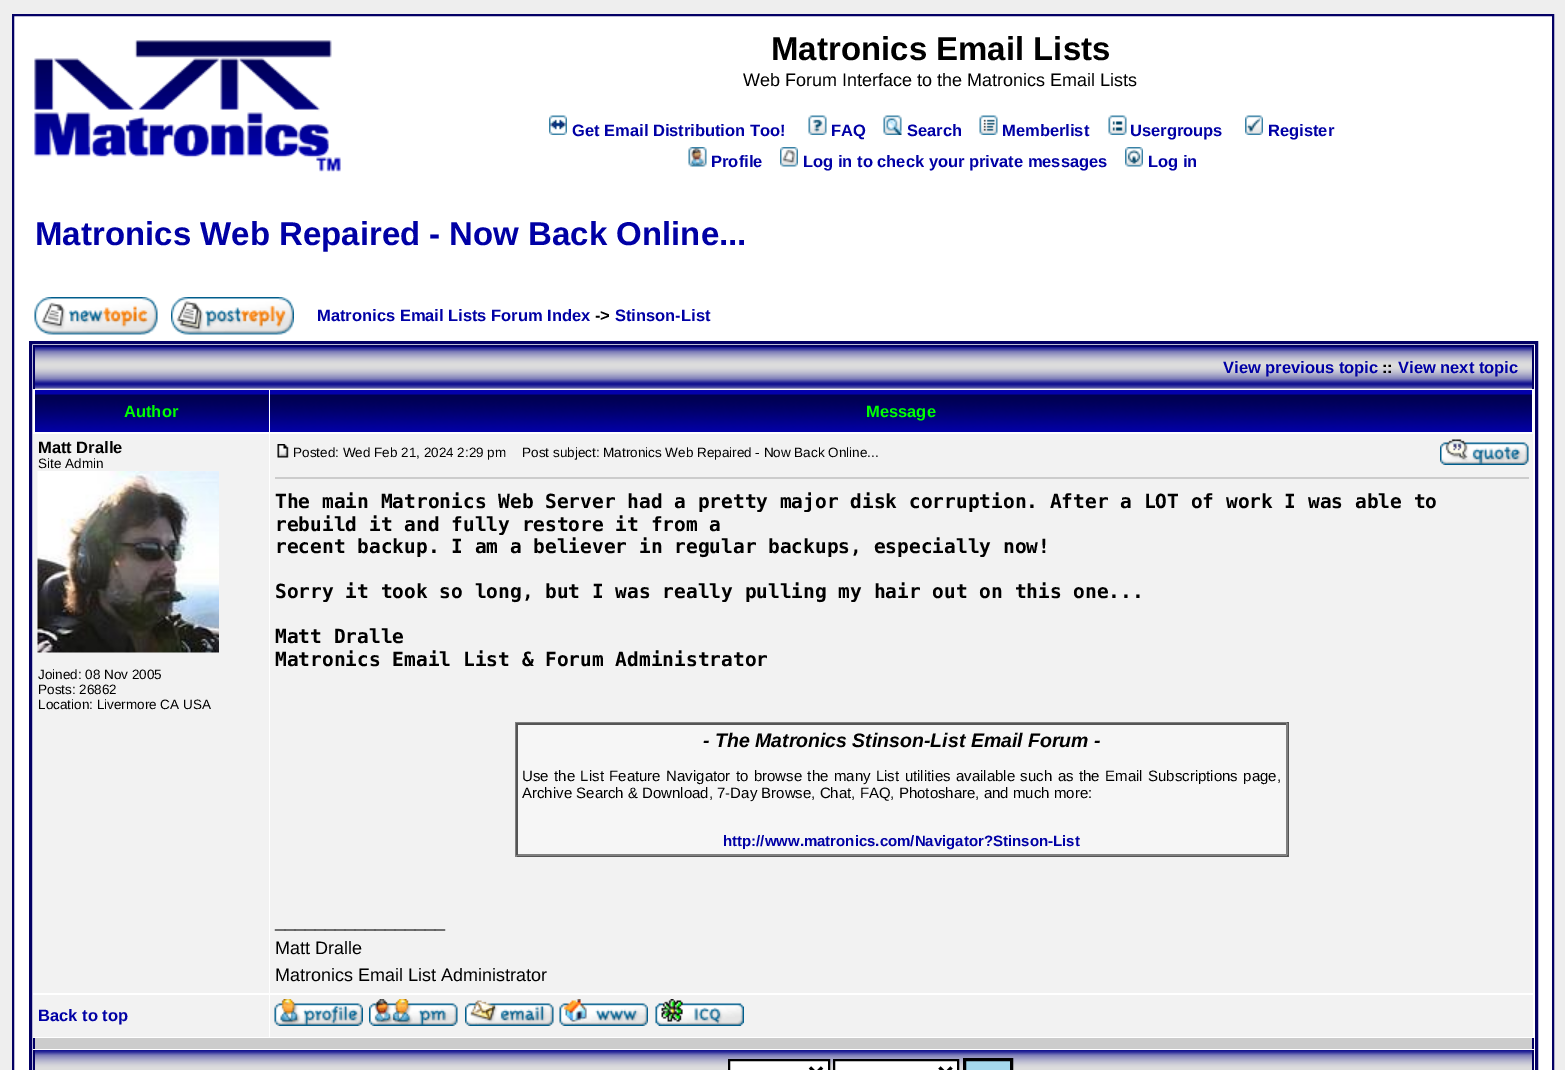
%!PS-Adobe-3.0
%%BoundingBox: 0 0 1565 1070
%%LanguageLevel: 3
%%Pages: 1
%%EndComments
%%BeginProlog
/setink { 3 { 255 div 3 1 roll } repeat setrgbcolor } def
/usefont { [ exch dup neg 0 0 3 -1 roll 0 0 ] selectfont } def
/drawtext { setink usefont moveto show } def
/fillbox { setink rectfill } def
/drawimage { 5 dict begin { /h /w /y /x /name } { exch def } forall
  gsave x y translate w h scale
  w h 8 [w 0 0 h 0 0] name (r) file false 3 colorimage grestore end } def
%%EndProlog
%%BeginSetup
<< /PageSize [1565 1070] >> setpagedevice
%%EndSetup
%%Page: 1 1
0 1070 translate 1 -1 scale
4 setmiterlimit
0 0 1565 1070 238 238 238 fillbox
255 255 255 setink
13 15 moveto 1553 15 lineto 1553 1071 lineto 13 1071 lineto closepath gsave fill grestore
3 0 101 setink
2 setlinewidth
stroke
(assets/img1.rgb) 34 40 307 132 drawimage
(Matronics Email Lists) 771 60 /LiberationSans-Bold 33 0 0 0 drawtext
(Web Forum Interface to the Matronics Email Lists) 743 86 /LiberationSans-Regular 18 0 0 0 drawtext
(assets/img2.rgb) 549 115 18 20 drawimage
(Get Email Distribution Too!) 572 136 /LiberationSans-Bold 16.5 0 0 165 drawtext
(assets/img3.rgb) 808 115 19 20 drawimage
(FAQ) 831 136 /LiberationSans-Bold 16.5 0 0 165 drawtext
(assets/img4.rgb) 883 115 19 20 drawimage
(Search) 907 136 /LiberationSans-Bold 16.5 0 0 165 drawtext
(assets/img5.rgb) 979 115 19 20 drawimage
(Memberlist) 1002 136 /LiberationSans-Bold 16.5 0 0 165 drawtext
(assets/img6.rgb) 1108 115 19 20 drawimage
(Usergroups) 1130 136 /LiberationSans-Bold 16.5 0 0 165 drawtext
(assets/img7.rgb) 1245 115 18 20 drawimage
(Register) 1268 136 /LiberationSans-Bold 16.5 0 0 165 drawtext
(assets/img8.rgb) 688 147 19 20 drawimage
(Profile) 711 167 /LiberationSans-Bold 16.5 0 0 165 drawtext
(assets/img9.rgb) 780 147 18 20 drawimage
(Log in to check your private messages) 803 167 /LiberationSans-Bold 16.5 0 0 165 drawtext
(assets/img10.rgb) 1125 147 18 20 drawimage
(Log in) 1148 167 /LiberationSans-Bold 16.5 0 0 165 drawtext
(Matronics Web Repaired - Now Back Online...) 35 245 /LiberationSans-Bold 33 0 0 165 drawtext
(assets/img11.rgb) 34 297 124 38 drawimage
(assets/img12.rgb) 171 297 123 38 drawimage
(Matronics Email Lists Forum Index) 317 321 /LiberationSans-Bold 16.5 0 0 165 drawtext
(->) 595 321 /LiberationSans-Bold 16.5 0 0 0 drawtext
(Stinson-List) 615 321 /LiberationSans-Bold 16.5 0 0 165 drawtext
3 0 101 setink
3 setlinewidth
30.5 342.5 1506 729 rectstroke
35 388 1497 1 204 204 204 fillbox
(assets/img13.rgb) 35 347 1497 42 drawimage
33 345 1500 2 3 0 101 fillbox
1532 345 2 44 3 0 101 fillbox
33 345 2 44 3 0 101 fillbox
(View previous topic) 1223 373 /LiberationSans-Bold 16.5 0 0 165 drawtext
(::) 1382 373 /LiberationSans-Bold 16.5 0 0 0 drawtext
(View next topic) 1398 373 /LiberationSans-Bold 16.5 0 0 165 drawtext
268 390 1 42 0 0 165 fillbox
(assets/img14.rgb) 35 390 234 42 drawimage
(Author) 124 417 /LiberationSans-Bold 16.5 0 255 0 drawtext
(assets/img15.rgb) 270 390 1262 42 drawimage
(Message) 866 417 /LiberationSans-Bold 16.5 0 255 0 drawtext
33 434 236 559 242 242 242 fillbox
(Matt Dralle) 38 453 /LiberationSans-Bold 16.5 0 0 0 drawtext
(Site Admin) 38 468 /LiberationSans-Regular 13.5 0 0 0 drawtext
(assets/img16.rgb) 37 471 182 182 drawimage
(Joined: 08 Nov 2005) 38 679 /LiberationSans-Regular 13.5 0 0 0 drawtext
(Posts: 26862) 38 694 /LiberationSans-Regular 13.5 0 0 0 drawtext
(Location: Livermore CA USA) 38 709 /LiberationSans-Regular 13.5 0 0 0 drawtext
270 434 1263 559 242 242 242 fillbox
(assets/img17.rgb) 277 444 12 14 drawimage
(Posted: Wed Feb 21, 2024 2:29 pm) 293 457 /LiberationSans-Regular 13.5 0 0 0 drawtext
(Post subject: Matronics Web Repaired - Now Back Online...) 522 457 /LiberationSans-Regular 13.5 0 0 0 drawtext
(assets/img18.rgb) 1440 439 89 26 drawimage
275 477 1254 2 204 204 204 fillbox
(The main Matronics Web Server had a pretty major disk corruption. After a LOT of work I was able to) 275 508 /DejaVuSansMono-Bold 19.5 0 0 0 drawtext
(rebuild it and fully restore it from a) 275 531 /DejaVuSansMono-Bold 19.5 0 0 0 drawtext
(recent backup. I am a believer in regular backups, especially now!) 275 553 /DejaVuSansMono-Bold 19.5 0 0 0 drawtext
(Sorry it took so long, but I was really pulling my hair out on this one...) 275 598 /DejaVuSansMono-Bold 19.5 0 0 0 drawtext
(Matt Dralle) 275 643 /DejaVuSansMono-Bold 19.5 0 0 0 drawtext
(Matronics Email List & Forum Administrator) 275 666 /DejaVuSansMono-Bold 19.5 0 0 0 drawtext
515 722 774 1 128 128 128 fillbox
1287 722 2 135 85 85 85 fillbox
515 855 774 2 85 85 85 fillbox
515 722 2 135 128 128 128 fillbox
518 725 768 129 246 246 246 fillbox
516 723 771 2 85 85 85 fillbox
1286 723 2 132 128 128 128 fillbox
516 854 771 2 128 128 128 fillbox
516 723 2 132 85 85 85 fillbox
(- The Matronics Stinson-List Email Forum -) 703 747 /LiberationSans-BoldItalic 19.5 0 0 0 drawtext
/LiberationSans-Regular 15 usefont
522 781 moveto 1.25 0 32 (Use the List Feature Navigator to browse the many List utilities available such as the Email Subscriptions page,) widthshow
(Archive Search & Download, 7-Day Browse, Chat, FAQ, Photoshare, and much more:) 522 798 /LiberationSans-Regular 15 0 0 0 drawtext
(http://www.matronics.com/Navigator?Stinson-List) 723 846 /LiberationSans-Bold 15 0 0 165 drawtext
(_________________) 275 927 /LiberationSans-Regular 18 0 0 0 drawtext
(Matt Dralle) 275 954 /LiberationSans-Regular 18 0 0 0 drawtext
(Matronics Email List Administrator) 275 981 /LiberationSans-Regular 18 0 0 0 drawtext
33 995 236 42 242 242 242 fillbox
(Back to top) 38 1021 /LiberationSans-Bold 16.5 0 0 165 drawtext
270 995 1263 42 242 242 242 fillbox
(assets/img19.rgb) 274 999 89 27 drawimage
(assets/img20.rgb) 369 999 89 27 drawimage
(assets/img21.rgb) 465 1000 89 26 drawimage
(assets/img22.rgb) 559 999 89 27 drawimage
(assets/img23.rgb) 655 999 89 27 drawimage
35 1038 1497 11 204 204 204 fillbox
1532 1038 2 11 3 0 101 fillbox
33 1038 2 11 3 0 101 fillbox
(assets/img24.rgb) 35 1050 1497 20 drawimage
1532 1050 2 20 3 0 101 fillbox
33 1050 2 20 3 0 101 fillbox
255 255 255 setink
729 1060 moveto 829 1060 lineto 829 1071 lineto 729 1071 lineto closepath gsave fill grestore
0 0 0 setink
2 setlinewidth
stroke
3 setlinewidth
810 1067.5 moveto 816 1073.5 lineto 822 1067.5 lineto stroke
255 255 255 setink
834 1060 moveto 958 1060 lineto 958 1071 lineto 834 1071 lineto closepath gsave fill grestore
0 0 0 setink
2 setlinewidth
stroke
3 setlinewidth
939.5 1067.5 moveto 945.5 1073.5 lineto 951.5 1067.5 lineto stroke
165 217 236 setink
964.5 1059.5 moveto 1011.5 1059.5 lineto 1011.5 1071.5 lineto 964.5 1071.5 lineto closepath gsave fill grestore
0 0 0 setink
stroke
showpage
%%EOF
